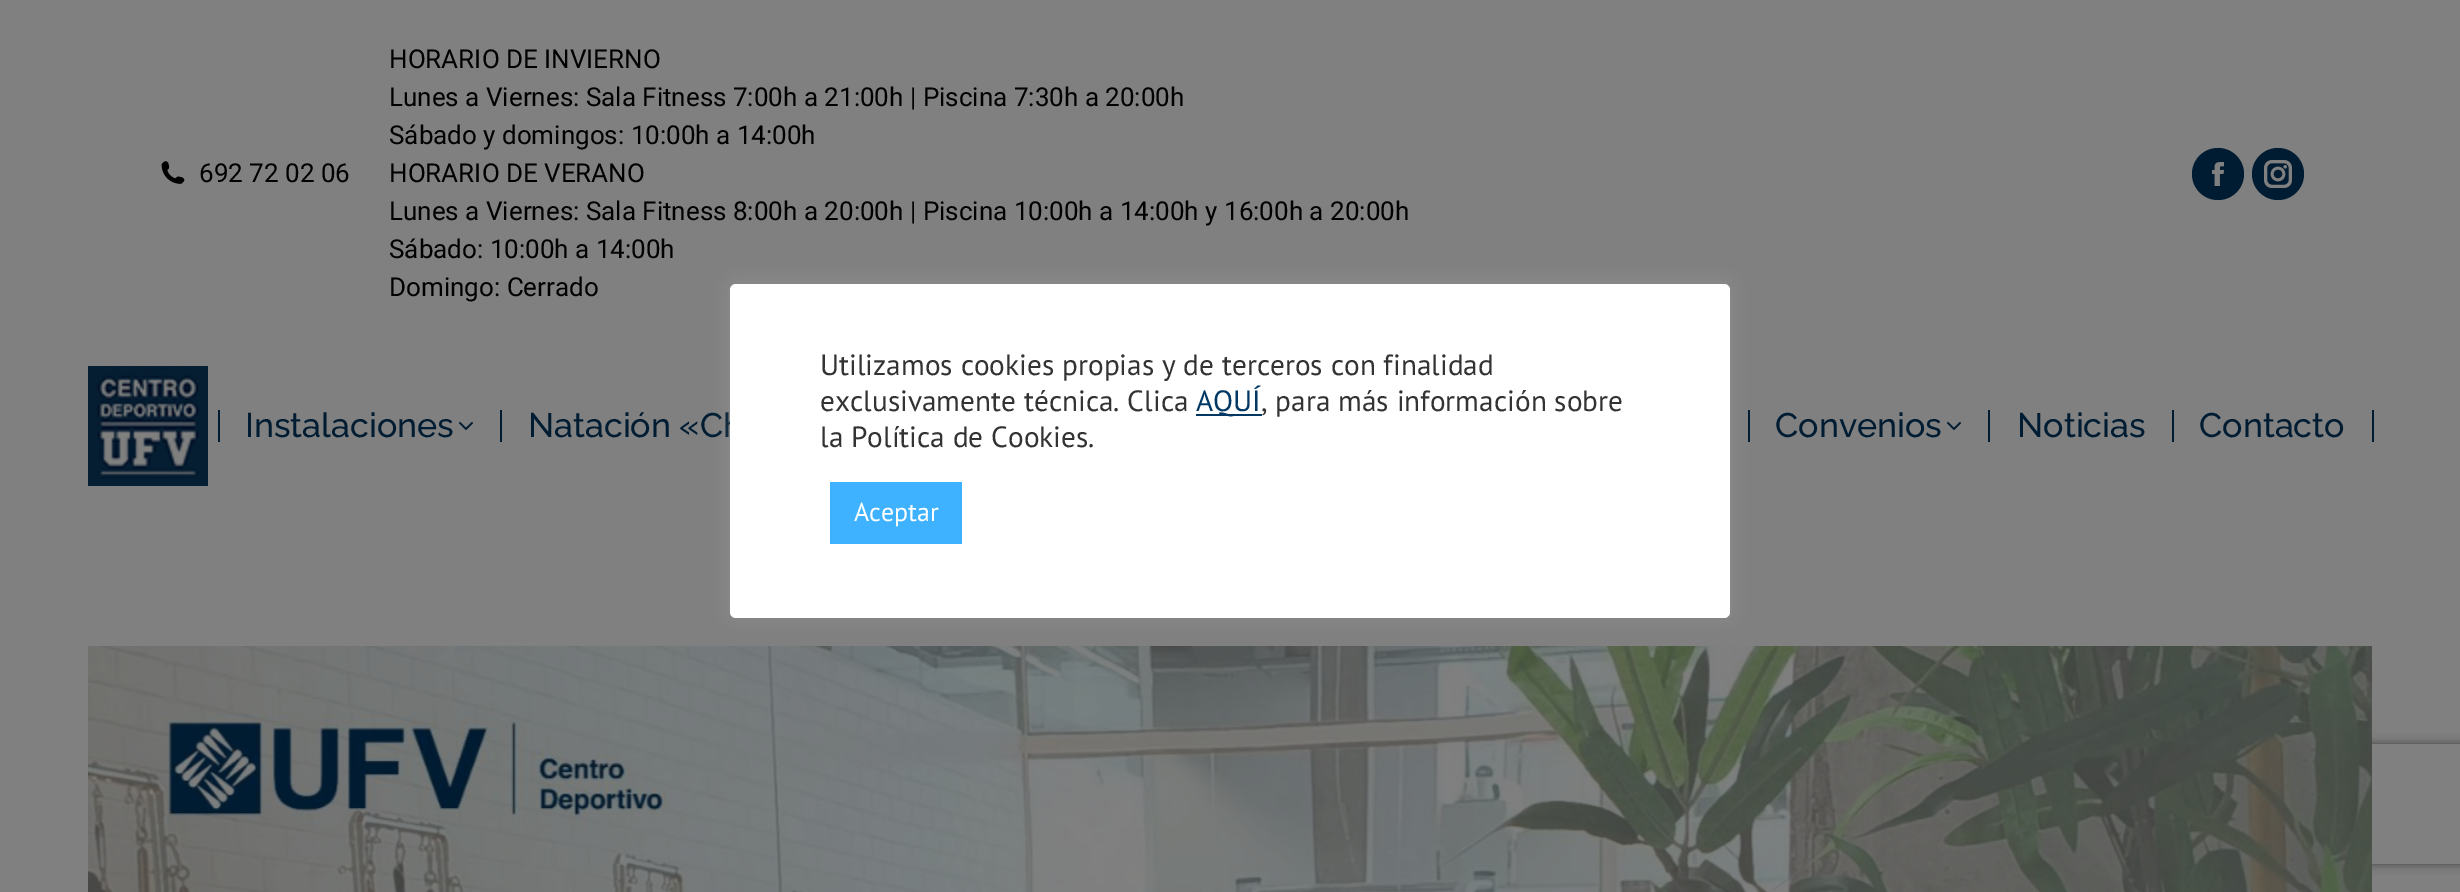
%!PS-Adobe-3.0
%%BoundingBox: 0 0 2460 892
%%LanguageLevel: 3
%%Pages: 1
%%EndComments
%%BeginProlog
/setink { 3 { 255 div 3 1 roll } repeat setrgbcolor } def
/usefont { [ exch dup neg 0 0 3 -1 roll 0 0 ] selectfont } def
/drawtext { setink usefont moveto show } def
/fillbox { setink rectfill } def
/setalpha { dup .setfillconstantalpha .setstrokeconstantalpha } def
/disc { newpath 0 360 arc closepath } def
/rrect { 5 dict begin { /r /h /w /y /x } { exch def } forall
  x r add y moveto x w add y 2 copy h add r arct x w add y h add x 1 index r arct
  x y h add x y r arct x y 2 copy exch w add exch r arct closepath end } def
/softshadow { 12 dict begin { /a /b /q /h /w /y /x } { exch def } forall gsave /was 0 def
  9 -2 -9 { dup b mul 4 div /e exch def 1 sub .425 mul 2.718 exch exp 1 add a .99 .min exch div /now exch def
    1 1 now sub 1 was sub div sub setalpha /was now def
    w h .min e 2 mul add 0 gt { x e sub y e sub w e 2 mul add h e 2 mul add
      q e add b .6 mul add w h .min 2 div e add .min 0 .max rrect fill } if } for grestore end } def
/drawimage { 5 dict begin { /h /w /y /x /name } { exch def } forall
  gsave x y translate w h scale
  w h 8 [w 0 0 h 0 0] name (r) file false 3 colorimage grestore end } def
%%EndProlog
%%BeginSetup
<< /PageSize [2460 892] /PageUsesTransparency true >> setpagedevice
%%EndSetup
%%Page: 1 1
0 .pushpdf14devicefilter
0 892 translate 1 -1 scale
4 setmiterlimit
0 0 2460 892 128 128 128 fillbox
(assets/img1.rgb) 161 161 24 23 drawimage
(692 72 02 06) 199 182 /Roboto-Regular 26 0 0 0 drawtext
(HORARIO DE INVIERNO) 389 68 /Roboto-Regular 26 0 0 0 drawtext
(Lunes a Viernes: Sala Fitness 7:00h a 21:00h | Piscina 7:30h a 20:00h) 389 106 /Roboto-Regular 26 0 0 0 drawtext
(Sábado y domingos: 10:00h a 14:00h) 389 144 /Roboto-Regular 26 0 0 0 drawtext
(HORARIO DE VERANO) 389 182 /Roboto-Regular 26 0 0 0 drawtext
(Lunes a Viernes: Sala Fitness 8:00h a 20:00h | Piscina 10:00h a 14:00h y 16:00h a 20:00h) 389 220 /Roboto-Regular 26 0 0 0 drawtext
(Sábado: 10:00h a 14:00h) 389 258 /Roboto-Regular 26 0 0 0 drawtext
(Domingo: Cerrado) 389 296 /Roboto-Regular 26 0 0 0 drawtext
0 28 50 setink
2218 174 26 disc fill
(assets/img2.rgb) 2211 162 14 24 drawimage
2278 174 26 disc fill
(assets/img3.rgb) 2264 160 28 28 drawimage
(assets/img4.rgb) 88 366 120 120 drawimage
218 410 2 32 0 28 50 fillbox
(Instalaciones) 245 437 /Raleway-Medium 34 0 28 50 drawtext
(assets/img5.rgb) 459 422 14 8 drawimage
500 410 2 32 0 28 50 fillbox
(Natación «Ch) 528 437 /Raleway-Medium 34 0 28 50 drawtext
1748 410 2 32 0 28 50 fillbox
(Convenios) 1775 437 /Raleway-Medium 34 0 28 50 drawtext
(assets/img5.rgb) 1947 422 14 8 drawimage
1988 410 2 32 0 28 50 fillbox
(Noticias) 2017 437 /Raleway-Medium 34 0 28 50 drawtext
2172 410 2 32 0 28 50 fillbox
(Contacto) 2199 437 /Raleway-Medium 34 0 28 50 drawtext
2372 410 2 32 0 28 50 fillbox
gsave
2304 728 moveto 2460 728 lineto 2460 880 lineto 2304 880 lineto closepath 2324 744 moveto 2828 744 lineto 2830 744 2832 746 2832 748 curveto 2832 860 lineto 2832 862 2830 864 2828 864 curveto 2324 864 lineto 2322 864 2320 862 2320 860 curveto 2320 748 lineto 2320 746 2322 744 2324 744 curveto closepath eoclip newpath
64 64 64 setink
2320 744 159 120 4 5 1 softshadow
grestore
(assets/img6.rgb) 88 646 2284 246 drawimage
172 171 171 setink
730 282 1000 334 6 10 0.3 softshadow
255 255 255 setink
730 284 1000 334 6 rrect fill
(Utilizamos cookies propias y de terceros con finalidad) 820 375 /PTSans-Regular 29.3 51 51 51 drawtext
(exclusivamente técnica. Clica) 820 411 /PTSans-Regular 29.3 51 51 51 drawtext
1196 414 66 2 0 55 99 fillbox
(AQUÍ) 1196 411 /PTSans-Regular 29.3 0 55 99 drawtext
(, para más información sobre) 1261 411 /PTSans-Regular 29.3 51 51 51 drawtext
(la Política de Cookies.) 820 447 /PTSans-Regular 29.3 51 51 51 drawtext
830 482 132 62 63 178 255 fillbox
(Aceptar) 854 521 /PTSans-Regular 26 255 255 255 drawtext
.poppdf14devicefilter showpage
%%EOF
